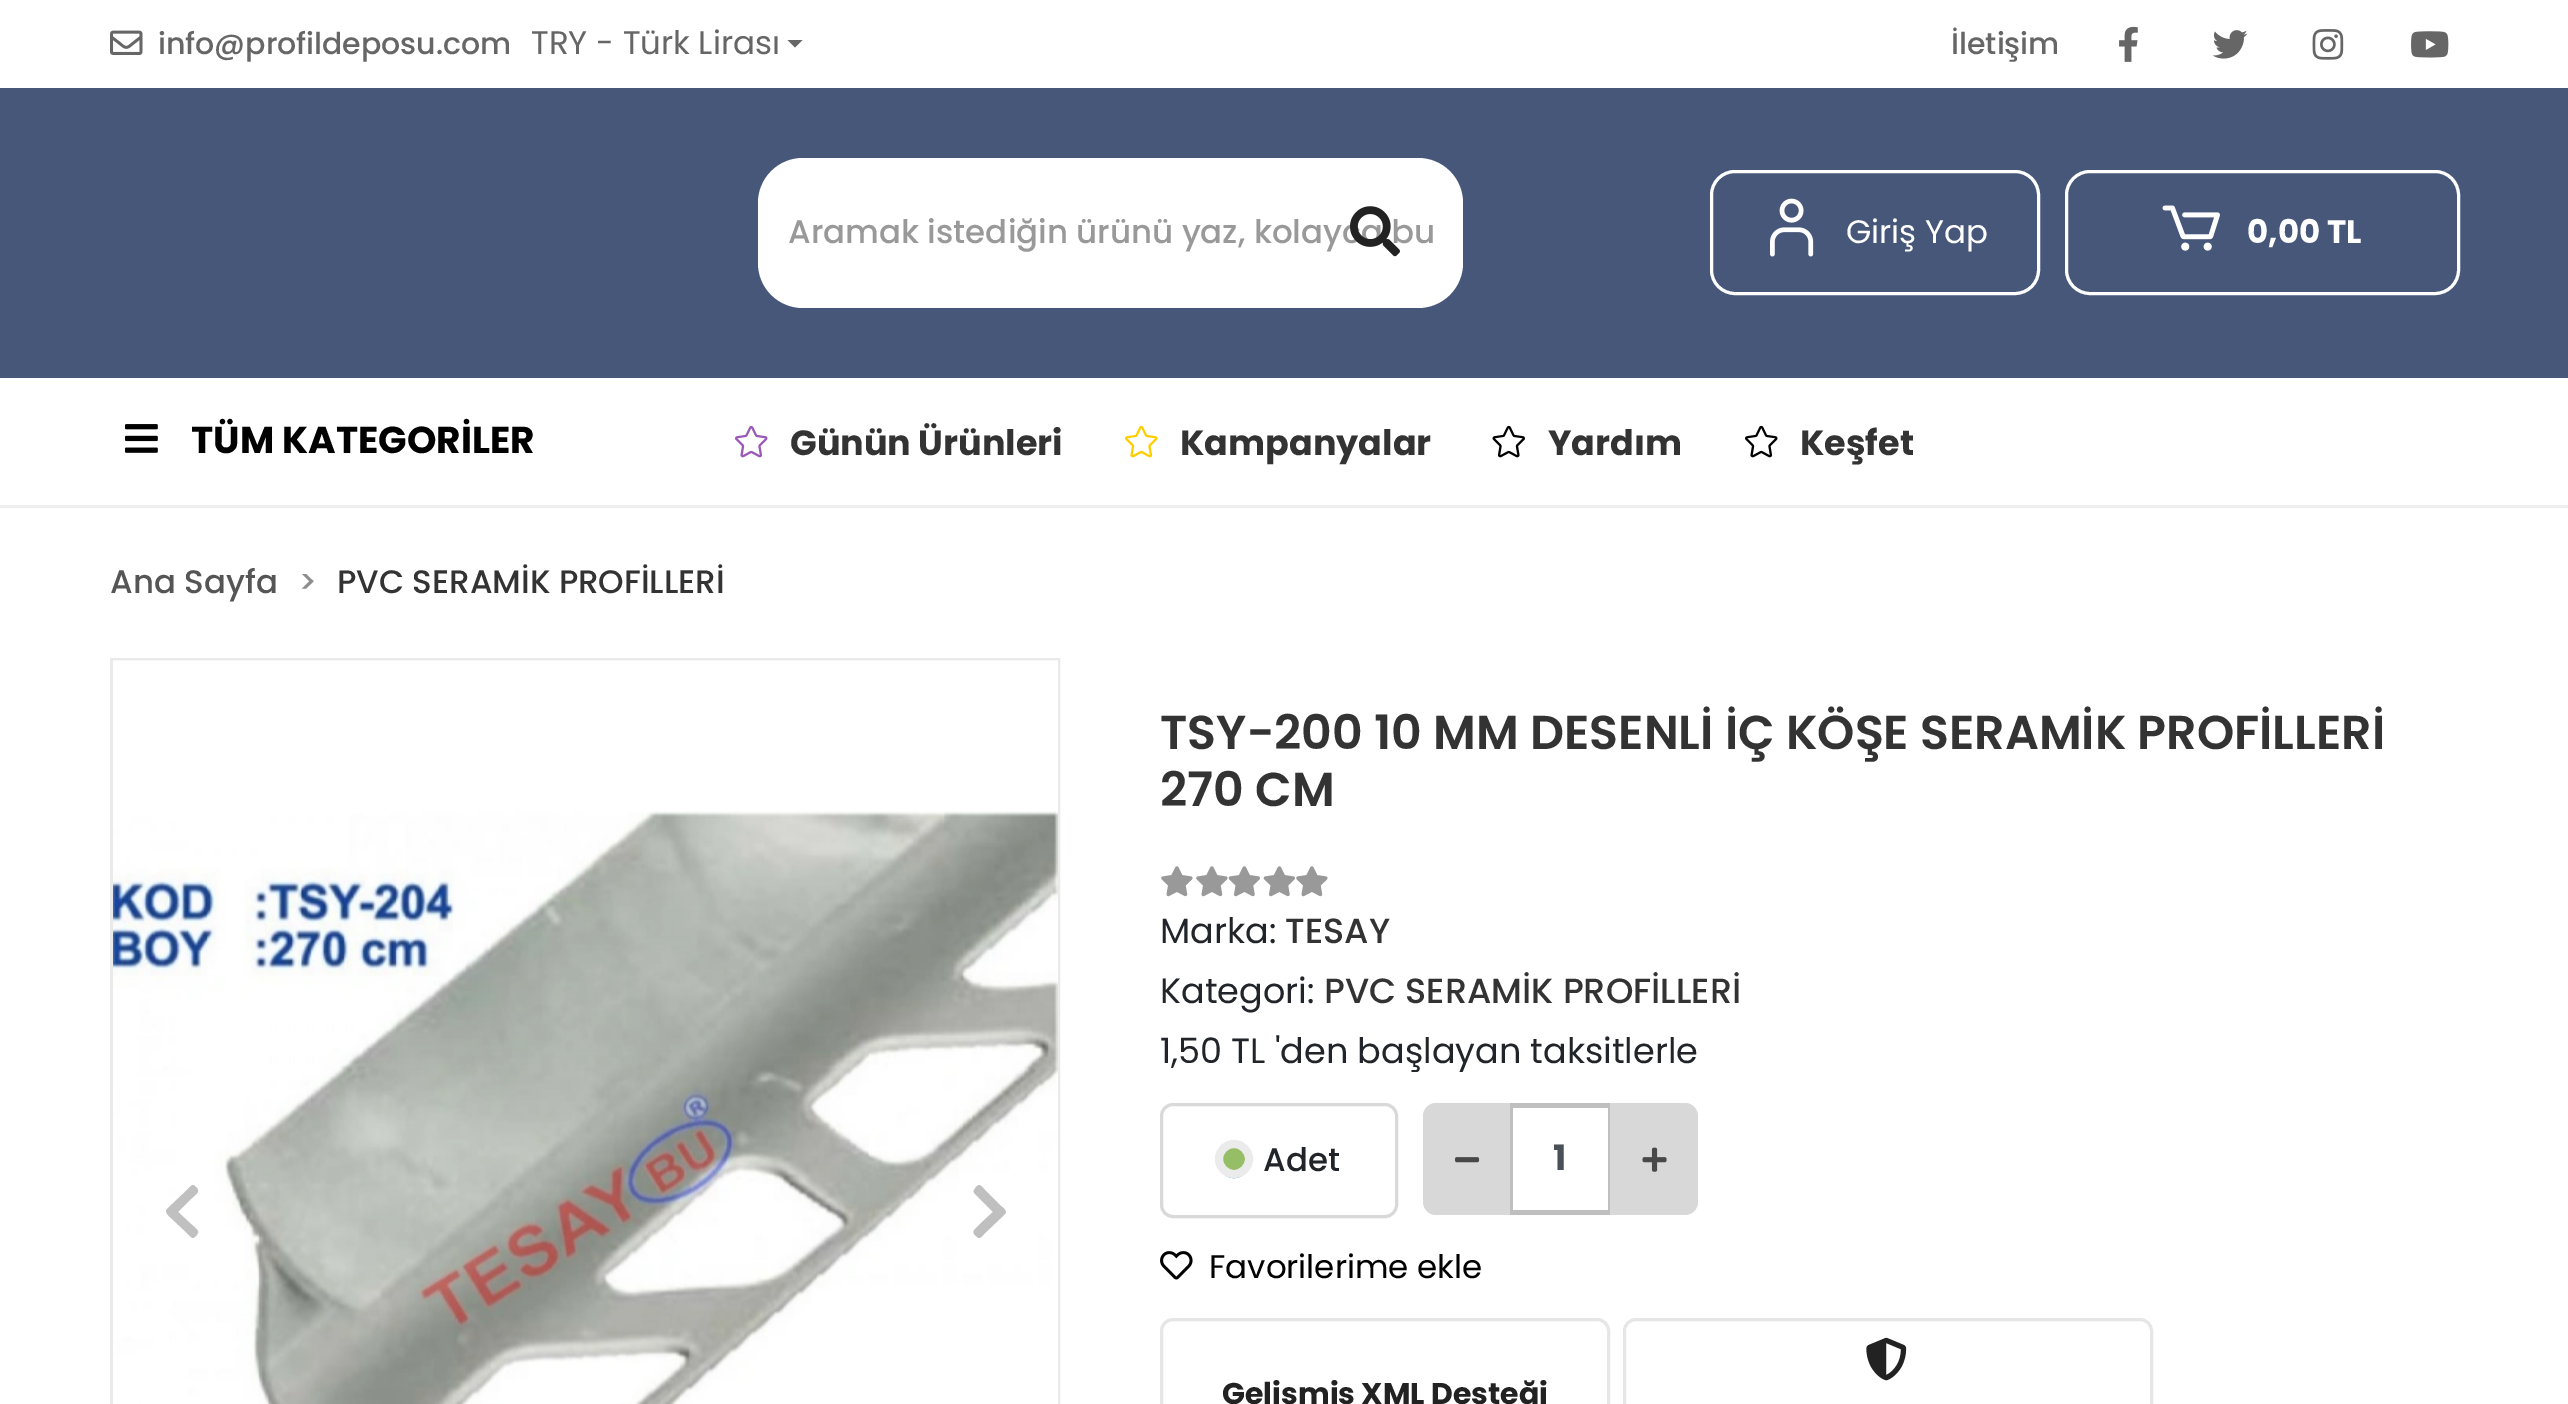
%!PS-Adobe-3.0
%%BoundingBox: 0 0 2568 1404
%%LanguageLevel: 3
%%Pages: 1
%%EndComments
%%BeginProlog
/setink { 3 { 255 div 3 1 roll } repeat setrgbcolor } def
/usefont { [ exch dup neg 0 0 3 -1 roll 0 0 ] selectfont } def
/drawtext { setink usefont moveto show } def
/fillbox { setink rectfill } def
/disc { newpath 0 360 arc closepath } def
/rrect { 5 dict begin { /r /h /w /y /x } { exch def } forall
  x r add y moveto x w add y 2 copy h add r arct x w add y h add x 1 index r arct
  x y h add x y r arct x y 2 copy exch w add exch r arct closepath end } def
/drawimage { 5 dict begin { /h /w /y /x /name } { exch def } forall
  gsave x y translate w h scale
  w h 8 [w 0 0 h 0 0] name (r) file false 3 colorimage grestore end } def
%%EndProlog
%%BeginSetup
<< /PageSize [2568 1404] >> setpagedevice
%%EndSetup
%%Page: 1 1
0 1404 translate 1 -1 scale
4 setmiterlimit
0 0 2568 1404 255 255 255 fillbox
(assets/img1.rgb) 110 30 33 25 drawimage
(info@profildeposu.com) 158 54 /Poppins-Medium 30 102 102 102 drawtext
(TRY - Türk Lirası) 531 54 /Poppins-Regular 32.5 102 102 102 drawtext
787.5 40 moveto 802.5 40 lineto 795 47.5 lineto closepath fill
(İletişim) 1951 54 /Poppins-Medium 30 102 102 102 drawtext
(assets/img2.rgb) 2119 26 19 36 drawimage
(assets/img3.rgb) 2212 30 36 29 drawimage
(assets/img4.rgb) 2312 29 32 31 drawimage
(assets/img5.rgb) 2411 31 38 27 drawimage
0 88 2568 290 70 87 121 fillbox
255 255 255 setink
758 158 705 150 45 rrect fill
(Aramak istediğin ürünü yaz, kolayca bu) 788 243 /Poppins-Medium 32.5 153 153 153 drawtext
(assets/img6.rgb) 1350 206 50 51 drawimage
255 255 255 setink
3 setlinewidth
1711.5 171.5 327 122 23.5 rrect stroke
(assets/img7.rgb) 1770 198 44 59 drawimage
(Giriş Yap) 1846 243 /Poppins-Regular 32.5 255 255 255 drawtext
2066.5 171.5 392 122 23.5 rrect stroke
(assets/img8.rgb) 2162 205 58 46 drawimage
(0,00 TL) 2247 243 /Poppins-Bold 32.5 255 255 255 drawtext
0 505 2568 3 238 238 238 fillbox
(assets/img9.rgb) 125 424 33 29 drawimage
(TÜM KATEGORİLER) 191 453 /Poppins-Bold 37.5 0 0 0 drawtext
(assets/img10.rgb) 735 425 33 33 drawimage
(Günün Ürünleri) 790 455 /Poppins-Bold 35 51 51 51 drawtext
(assets/img11.rgb) 1125 425 33 33 drawimage
(Kampanyalar) 1180 455 /Poppins-Bold 35 51 51 51 drawtext
(assets/img12.rgb) 1492 425 33 33 drawimage
(Yardım) 1548 455 /Poppins-Bold 35 51 51 51 drawtext
(assets/img13.rgb) 1745 425 33 33 drawimage
(Keşfet) 1800 455 /Poppins-Bold 35 51 51 51 drawtext
(Ana Sayfa) 110 593 /Poppins-Medium 32.5 85 85 85 drawtext
(>) 298 593 /Poppins-Medium 32.5 142 142 142 drawtext
(PVC SERAMİK PROFİLLERİ) 337 593 /Poppins-Medium 32.5 51 51 51 drawtext
234 234 234 setink
111.5 659.5 947 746 rectstroke
(assets/img14.rgb) 113 660 945 744 drawimage
192 192 192 setink
167 1209 moveto 187 1190 lineto 191 1186 192 1183 196 1187 curveto 201 1192 196 1194 191 1199 curveto 178 1212 lineto 191 1224 lineto 193 1226 199 1230 198 1233 curveto 196 1236 lineto 192 1240 191 1237 187 1233 curveto 171 1218 lineto 169 1216 164 1212 167 1209 curveto closepath fill
191 191 191 setink
1005 1214 moveto 985 1233 lineto 981 1237 980 1240 976 1236 curveto 970 1231 976 1229 980 1224 curveto 993 1212 lineto 980 1199 lineto 979 1197 972 1193 974 1190 curveto 976 1187 lineto 980 1183 981 1186 985 1190 curveto 1001 1206 lineto 1002 1207 1008 1211 1005 1214 curveto closepath fill
(TSY-200 10 MM DESENLİ İÇ KÖŞE SERAMİK PROFİLLERİ) 1160 749 /Poppins-SemiBold 47.5 51 51 51 drawtext
(270 CM) 1160 806 /Poppins-SemiBold 47.5 51 51 51 drawtext
(assets/img15.rgb) 1161 866 32 31 drawimage
(assets/img15.rgb) 1196 866 32 31 drawimage
(assets/img16.rgb) 1228 866 32 31 drawimage
(assets/img16.rgb) 1263 866 32 31 drawimage
(assets/img15.rgb) 1296 866 32 31 drawimage
(Marka:) 1160 943 /Poppins-Regular 35 33 37 41 drawtext
(TESAY) 1285 943 /Poppins-Medium 35 51 51 51 drawtext
(Kategori:) 1160 1003 /Poppins-Regular 35 33 37 41 drawtext
(PVC SERAMİK PROFİLLERİ) 1324 1003 /Poppins-Medium 35 51 51 51 drawtext
(1,50 TL 'den başlayan taksitlerle) 1160 1063 /Poppins-Regular 35 33 37 41 drawtext
217 217 217 setink
1161.5 1104.5 235 112 11.5 rrect stroke
0 117 255 setink
1219.5 1146.5 29 30 14.5 rrect stroke
150 190 103 setink
1234 1159 15 disc gsave fill grestore
235 235 235 setink
8 setlinewidth
stroke
(Adet) 1263 1171 /Poppins-Medium 32.5 33 37 41 drawtext
216 216 216 setink
1436 1103 moveto 1510 1103 lineto 1510 1215 lineto 1436 1215 lineto 1429 1215 1423 1209 1423 1202 curveto 1423 1116 lineto 1423 1109 1429 1103 1436 1103 curveto closepath fill
(assets/img17.rgb) 1455 1157 25 6 drawimage
1510 1103 100 5 191 191 191 fillbox
1608 1103 2 112 191 191 191 fillbox
1510 1210 100 5 191 191 191 fillbox
1510 1103 3 112 191 191 191 fillbox
(1) 1553 1170 /Poppins-Bold 35 73 80 87 drawtext
216 216 216 setink
1610 1103 moveto 1685 1103 lineto 1692 1103 1698 1109 1698 1116 curveto 1698 1202 lineto 1698 1209 1692 1215 1685 1215 curveto 1610 1215 lineto closepath fill
(assets/img18.rgb) 1642 1147 25 25 drawimage
(assets/img19.rgb) 1160 1251 33 29 drawimage
(Favorilerime ekle) 1209 1278 /Poppins-Regular 32.5 0 0 0 drawtext
230 230 230 setink
3 setlinewidth
1161.5 1319.5 447 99 11.5 rrect stroke
(Gelişmiş XML Desteği) 1222 1404 /Poppins-Bold 30 34 34 34 drawtext
230 230 230 setink
1624.5 1319.5 527 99 11.5 rrect stroke
(assets/img20.rgb) 1866 1337 41 44 drawimage
showpage
%%EOF
